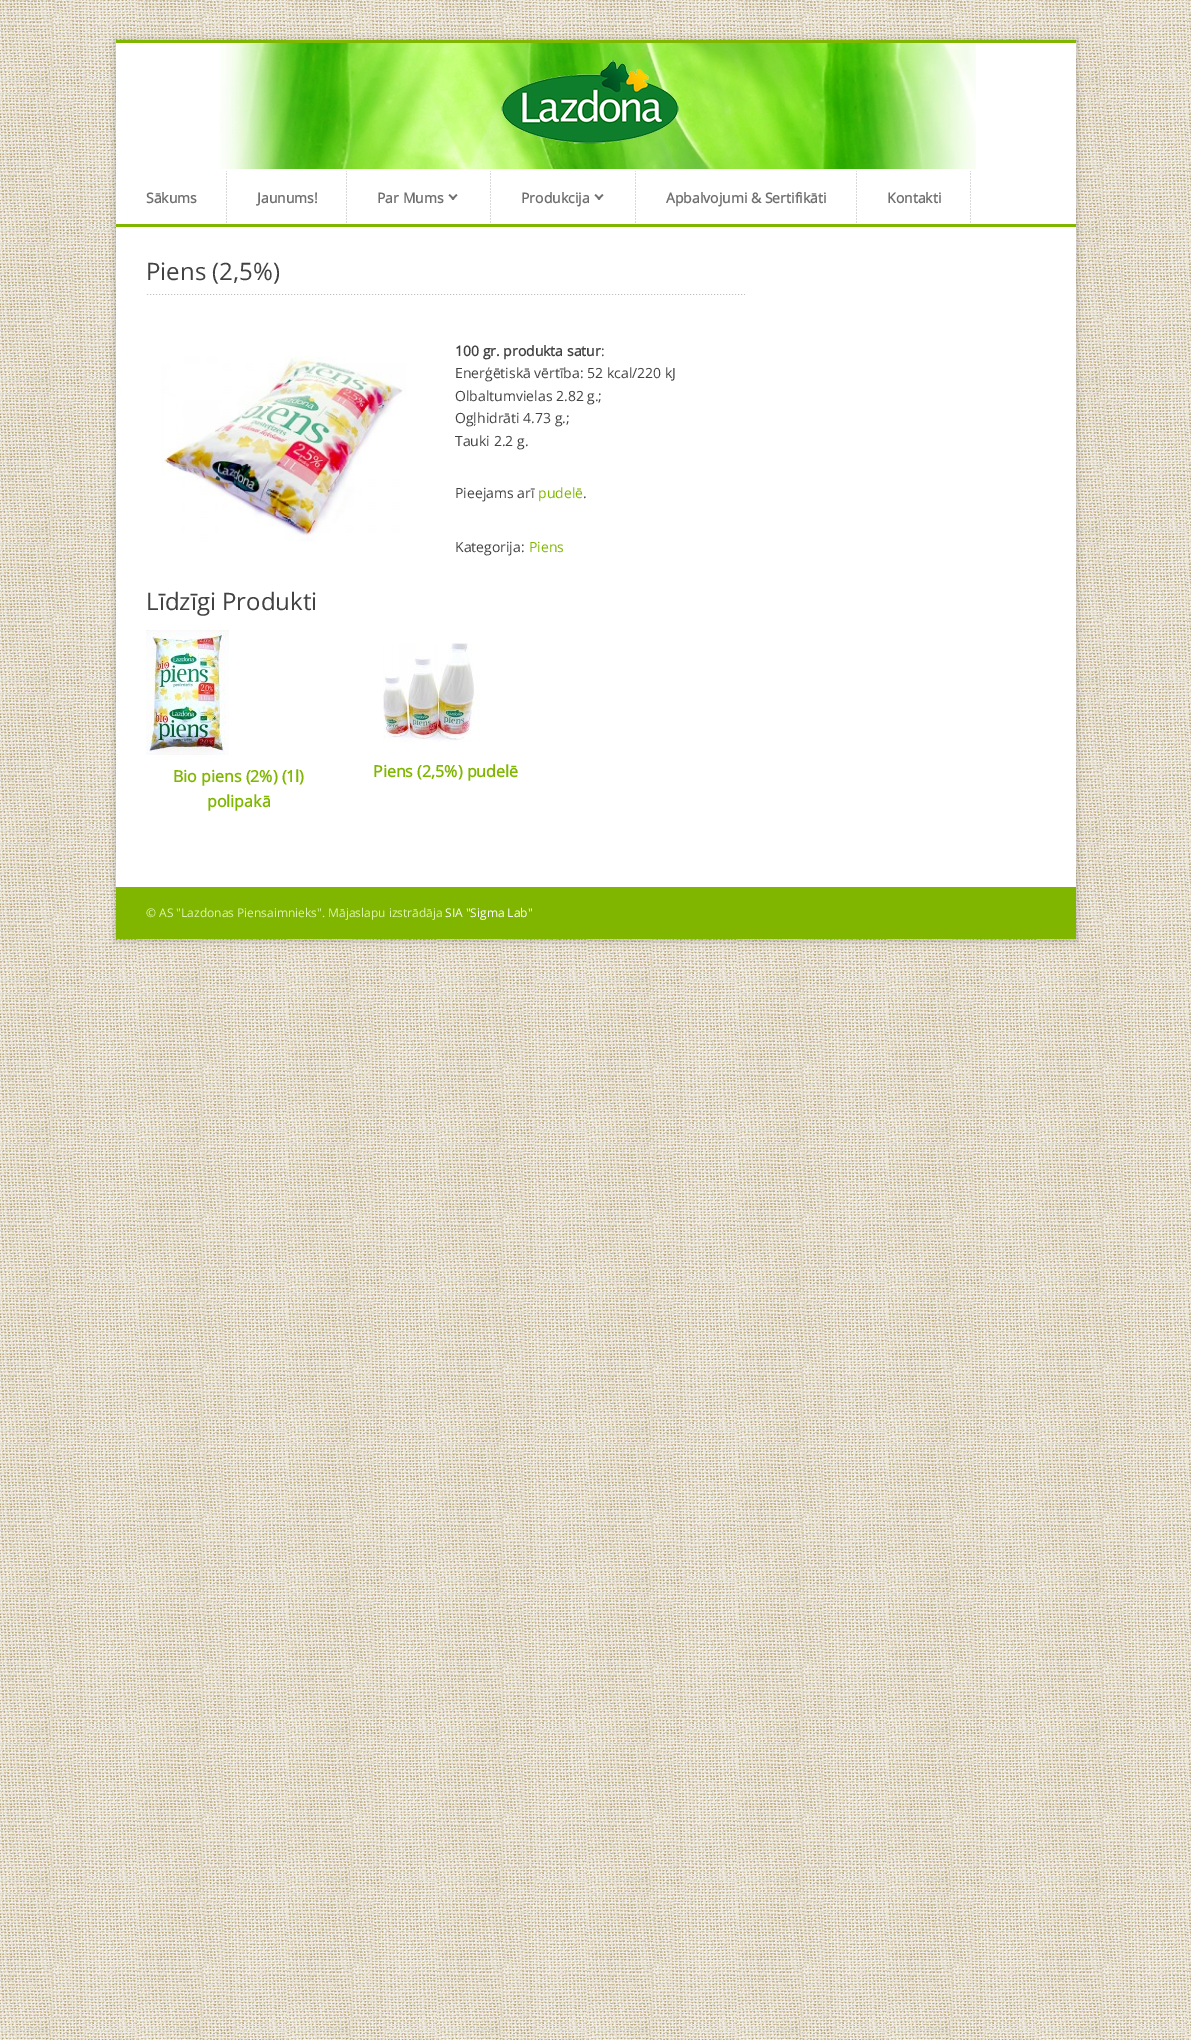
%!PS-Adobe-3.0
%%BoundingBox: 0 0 1191 2040
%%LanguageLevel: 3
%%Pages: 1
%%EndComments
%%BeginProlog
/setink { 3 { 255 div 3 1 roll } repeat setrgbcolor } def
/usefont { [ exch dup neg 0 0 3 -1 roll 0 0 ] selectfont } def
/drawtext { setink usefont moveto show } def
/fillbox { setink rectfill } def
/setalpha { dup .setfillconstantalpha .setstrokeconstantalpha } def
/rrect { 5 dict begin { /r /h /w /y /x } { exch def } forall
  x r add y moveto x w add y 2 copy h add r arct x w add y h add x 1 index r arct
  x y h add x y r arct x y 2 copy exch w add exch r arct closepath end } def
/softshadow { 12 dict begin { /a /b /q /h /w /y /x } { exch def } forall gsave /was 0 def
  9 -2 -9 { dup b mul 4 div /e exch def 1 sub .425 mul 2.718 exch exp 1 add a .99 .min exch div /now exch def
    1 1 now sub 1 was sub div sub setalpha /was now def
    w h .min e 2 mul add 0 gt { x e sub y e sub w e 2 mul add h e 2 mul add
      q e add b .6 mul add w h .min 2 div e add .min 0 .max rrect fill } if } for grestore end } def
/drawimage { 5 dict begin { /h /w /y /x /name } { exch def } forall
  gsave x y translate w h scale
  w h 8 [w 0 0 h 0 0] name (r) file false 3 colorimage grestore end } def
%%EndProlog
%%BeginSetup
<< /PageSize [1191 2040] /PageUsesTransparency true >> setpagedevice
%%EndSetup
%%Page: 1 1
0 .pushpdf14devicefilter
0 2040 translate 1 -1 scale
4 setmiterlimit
0 0 1191 2040 255 255 255 fillbox
(assets/img1.rgb) 0 0 1191 2040 drawimage
0 0 0 setink
115 40 962 901 0 3 0.2 softshadow
116 43 960 844 255 255 255 fillbox
116 40 960 3 128 182 0 fillbox
(assets/img2.rgb) 220 43 756 126 drawimage
116 224 960 3 128 182 0 fillbox
(assets/img3.rgb) 226 171 1 52 drawimage
(Sākums) 146 203 /OpenSans-Bold 14 111 111 111 drawtext
(assets/img3.rgb) 346 171 1 52 drawimage
(Jaunums!) 257 203 /OpenSans-Bold 14 111 111 111 drawtext
(assets/img3.rgb) 490 171 1 52 drawimage
(Par Mums) 377 203 /OpenSans-Bold 14 111 111 111 drawtext
(assets/img4.rgb) 448 194 10 6 drawimage
(assets/img3.rgb) 635 171 1 52 drawimage
(Produkcija) 521 203 /OpenSans-Bold 14 111 111 111 drawtext
(assets/img4.rgb) 594 194 10 6 drawimage
(assets/img3.rgb) 856 171 1 52 drawimage
(Apbalvojumi & Sertifikāti) 666 203 /OpenSans-Bold 14 111 111 111 drawtext
(assets/img3.rgb) 970 171 1 52 drawimage
(Kontakti) 887 203 /OpenSans-Bold 14 111 111 111 drawtext
(assets/img5.rgb) 147 294 598 1 drawimage
(Piens \(2,5%\)) 146 280 /OpenSans-Regular 24 66 66 66 drawtext
(assets/img6.rgb) 161 356 246 186 drawimage
(100 gr. produkta satur) 455 356 /OpenSans-Bold 14 66 66 66 drawtext
(:) 601 356 /OpenSans-Regular 14 66 66 66 drawtext
(Enerģētiskā vērtība: 52 kcal/220 kJ) 455 378 /OpenSans-Regular 14 66 66 66 drawtext
(Olbaltumvielas 2.82 g.;) 455 401 /OpenSans-Regular 14 66 66 66 drawtext
(Ogļhidrāti 4.73 g.;) 455 423 /OpenSans-Regular 14 66 66 66 drawtext
(Tauki 2.2 g.) 455 446 /OpenSans-Regular 14 66 66 66 drawtext
(Pieejams arī) 455 498 /OpenSans-Regular 14 66 66 66 drawtext
(pudelē) 538 498 /OpenSans-Regular 14 128 182 0 drawtext
(.) 583 498 /OpenSans-Regular 14 66 66 66 drawtext
(Kategorija:) 455 552 /OpenSans-Regular 14 66 66 66 drawtext
(Piens) 529 552 /OpenSans-Regular 14 128 182 0 drawtext
(Līdzīgi Produkti) 146 610 /OpenSans-Regular 24 66 66 66 drawtext
(assets/img7.rgb) 146 630 83 125 drawimage
(Bio piens \(2%\) \(1l\)) 173 782 /OpenSans-Bold 16 128 182 0 drawtext
(polipakā) 207 807 /OpenSans-Bold 16 128 182 0 drawtext
(assets/img8.rgb) 383 643 97 100 drawimage
(Piens \(2,5%\) pudelē) 373 777 /OpenSans-Bold 16 128 182 0 drawtext
116 887 960 52 128 182 0 fillbox
(© AS "Lazdonas Piensaimnieks". Mājaslapu izstrādāja) 146 917 /OpenSans-Regular 12 222 244 170 drawtext
(SIA "Sigma Lab") 445 917 /OpenSans-Regular 12 255 255 255 drawtext
.poppdf14devicefilter showpage
%%EOF
